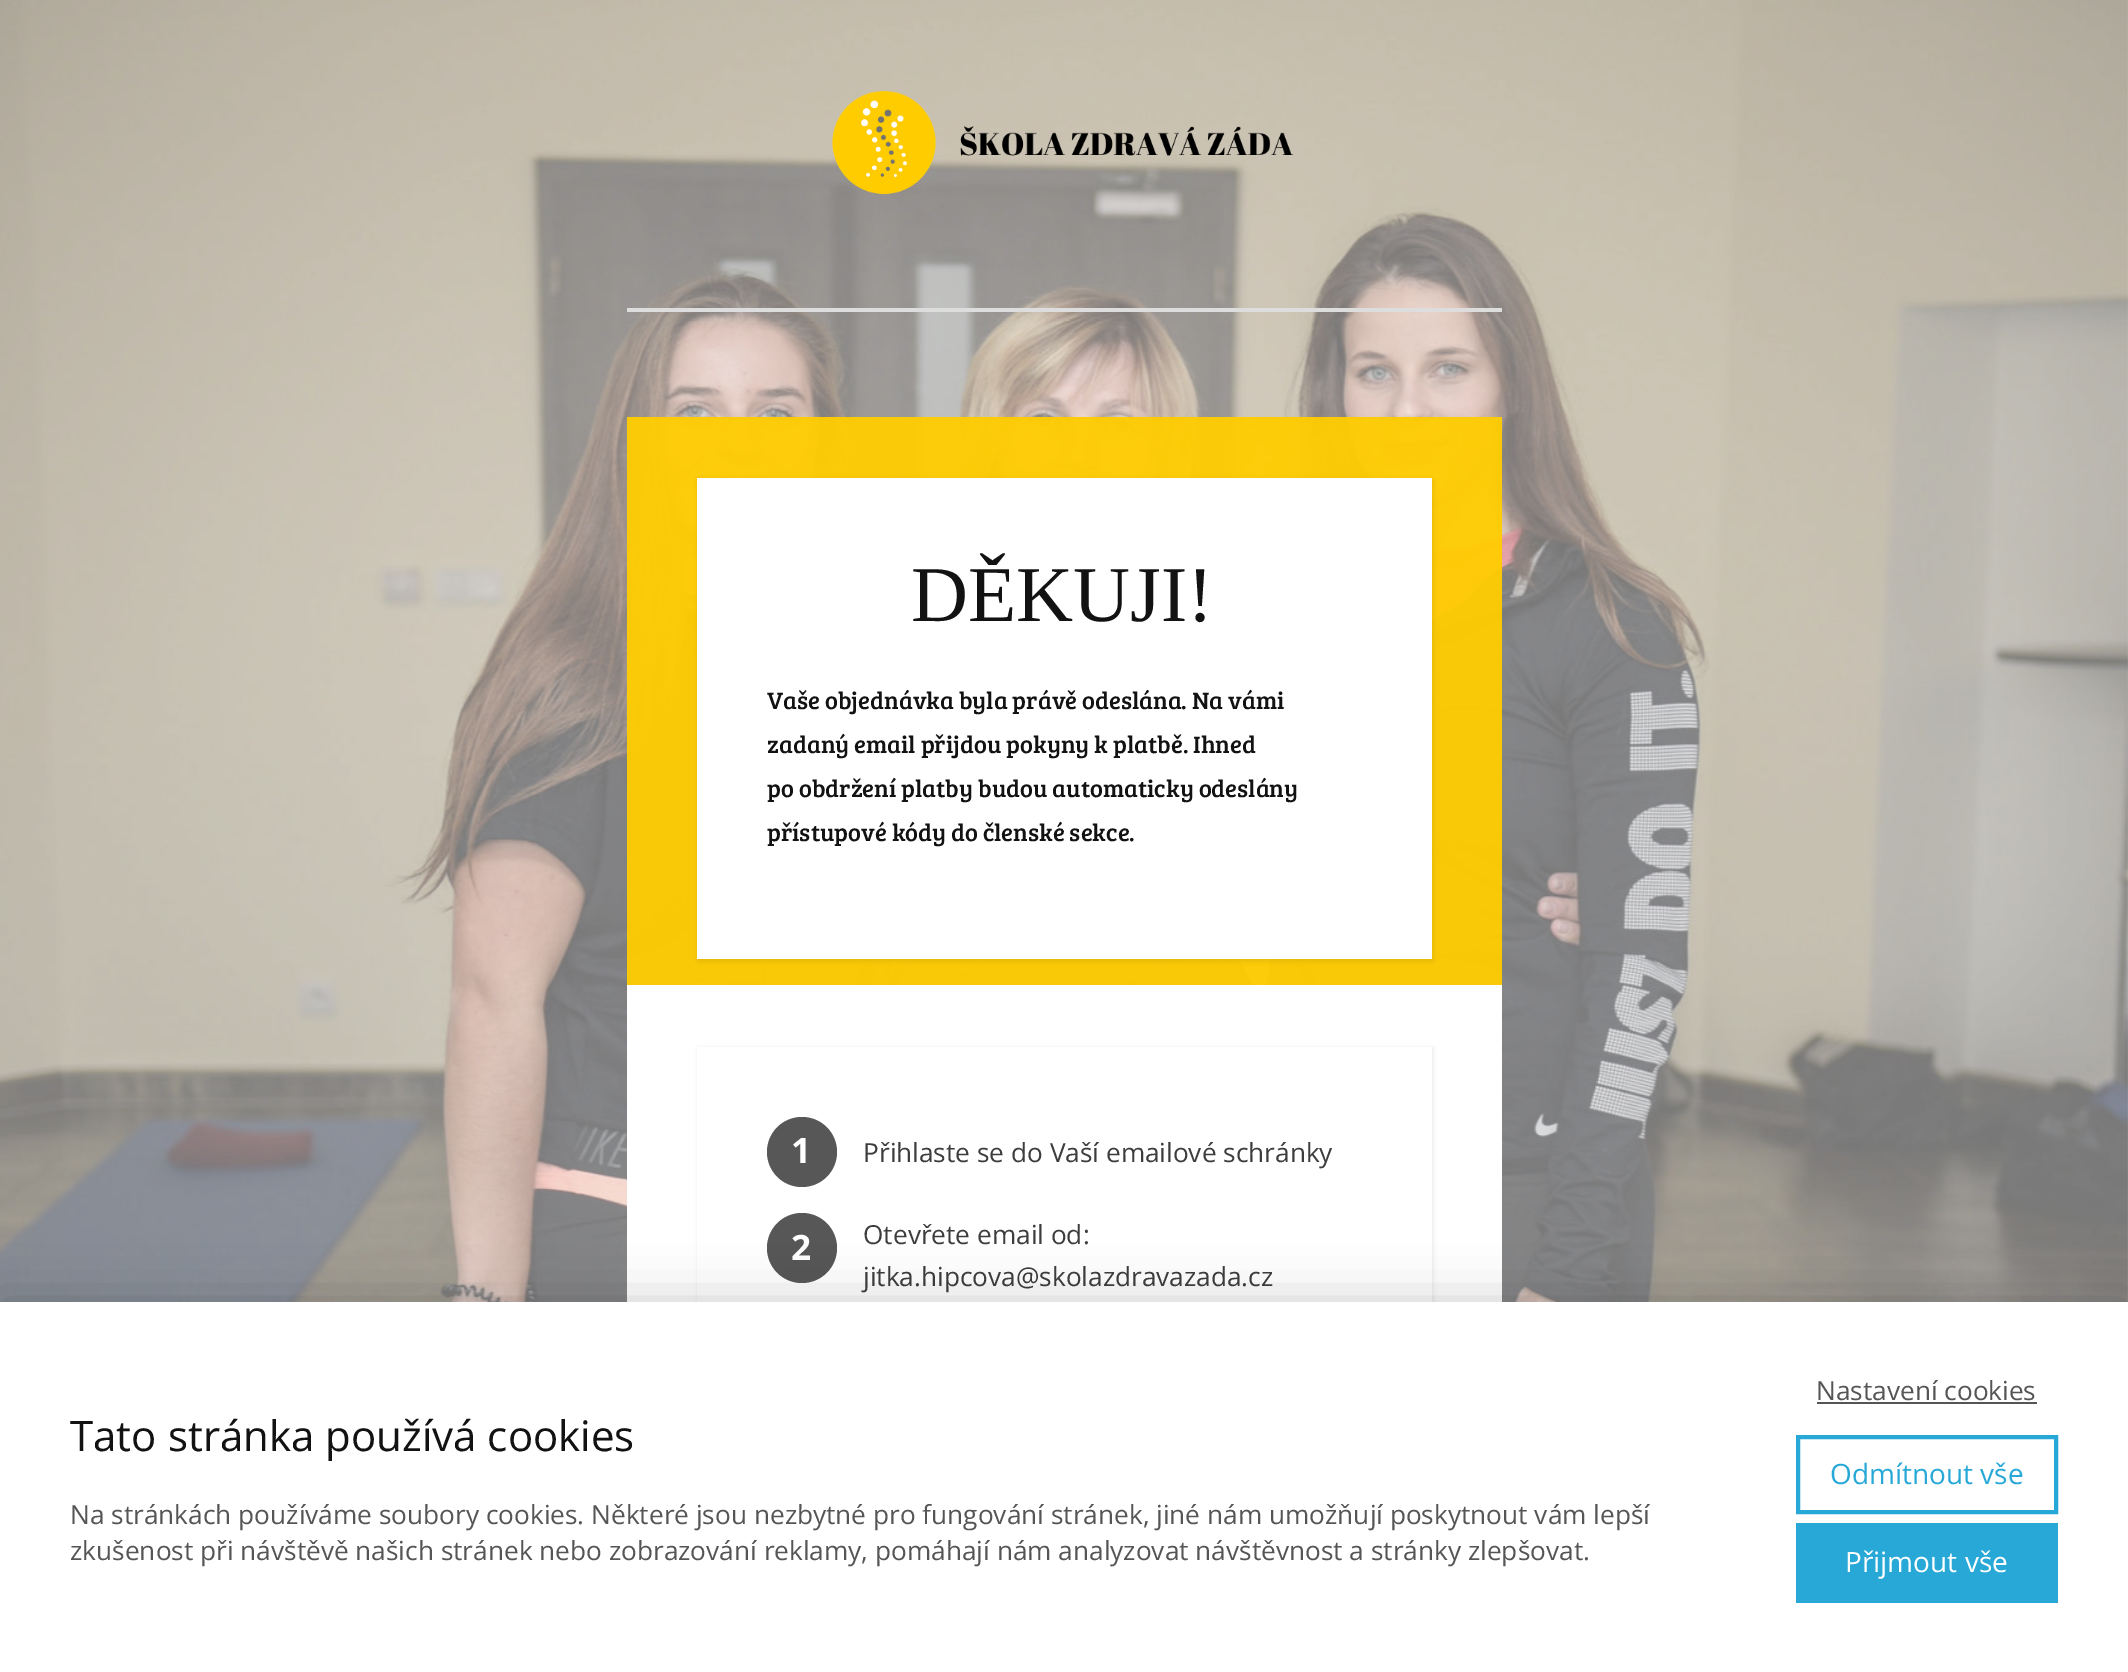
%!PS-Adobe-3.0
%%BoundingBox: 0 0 2128 1672
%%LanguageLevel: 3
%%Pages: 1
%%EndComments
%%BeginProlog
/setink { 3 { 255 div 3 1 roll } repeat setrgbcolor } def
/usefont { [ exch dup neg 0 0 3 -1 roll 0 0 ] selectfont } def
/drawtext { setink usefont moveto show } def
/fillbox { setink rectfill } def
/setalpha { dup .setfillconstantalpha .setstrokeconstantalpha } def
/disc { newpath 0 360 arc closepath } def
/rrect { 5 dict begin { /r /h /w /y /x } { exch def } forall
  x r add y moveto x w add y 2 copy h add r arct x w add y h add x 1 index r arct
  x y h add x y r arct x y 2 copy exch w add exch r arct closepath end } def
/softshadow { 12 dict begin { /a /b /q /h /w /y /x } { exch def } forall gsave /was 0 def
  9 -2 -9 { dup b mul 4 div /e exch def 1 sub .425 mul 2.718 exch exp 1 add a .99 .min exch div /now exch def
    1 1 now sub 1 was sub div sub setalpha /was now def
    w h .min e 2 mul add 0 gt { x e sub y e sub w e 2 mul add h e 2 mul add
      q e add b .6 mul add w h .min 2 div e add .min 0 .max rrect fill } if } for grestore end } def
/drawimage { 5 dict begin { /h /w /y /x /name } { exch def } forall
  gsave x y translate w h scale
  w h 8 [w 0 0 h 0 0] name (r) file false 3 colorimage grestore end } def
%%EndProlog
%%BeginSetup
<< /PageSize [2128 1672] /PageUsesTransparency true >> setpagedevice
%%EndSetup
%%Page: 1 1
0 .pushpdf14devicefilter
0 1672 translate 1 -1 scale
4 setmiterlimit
0 0 2128 1672 255 255 255 fillbox
(assets/img2.rgb) 0 0 2128 1302 drawimage
(assets/img1.rgb) 832 91 462 104 drawimage
627 308 875 4 221 221 221 fillbox
0.95 setalpha
627 417 875 568 255 204 0 fillbox
1 setalpha
0 0 0 setink
698 480 735 481 0 2 0.08 softshadow
697 478 735 481 255 255 255 fillbox
(DĚKUJI!) 911 621 /LiberationSerif-Regular 79 18 18 18 drawtext
(Vaše objednávka byla právě odeslána. Na vámi) 767 709 /BreeSerif-Regular 24.5 18 18 18 drawtext
(zadaný email přijdou pokyny k platbě. Ihned) 767 753 /BreeSerif-Regular 24.5 18 18 18 drawtext
(po obdržení platby budou automaticky odeslány) 767 797 /BreeSerif-Regular 24.5 18 18 18 drawtext
(přístupové kódy do členské sekce.) 767 841 /BreeSerif-Regular 24.5 18 18 18 drawtext
627 985 875 317 255 255 255 fillbox
0 0 0 setink
698 1048 735 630 0 2 0.08 softshadow
697 1047 735 255 255 255 255 fillbox
87 87 87 setink
802 1152 35 disc fill
(1) 791 1163 /OpenSans-Bold 35 255 255 255 drawtext
(Přihlaste se do Vaší emailové schránky) 863 1162 /OpenSans-Regular 26.25 61 61 61 drawtext
87 87 87 setink
802 1248 35 disc fill
(2) 791 1260 /OpenSans-Bold 35 255 255 255 drawtext
(Otevřete email od:) 863 1244 /OpenSans-Regular 26.25 61 61 61 drawtext
(jitka.hipcova@skolazdravazada.cz) 863 1286 /OpenSans-Regular 26.25 61 61 61 drawtext
0 0 0 setink
0 1302 2128 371 0 26 0.2 softshadow
0 1302 2128 370 255 255 255 fillbox
(Tato stránka používá cookies) 70 1451 /OpenSans-Regular 42 18 18 18 drawtext
(Na stránkách používáme soubory cookies. Některé jsou nezbytné pro fungování stránek, jiné nám umožňují poskytnout vám lepší) 70 1524 /OpenSans-Regular 26.25 85 85 85 drawtext
(zkušenost při návštěvě našich stránek nebo zobrazování reklamy, pomáhají nám analyzovat návštěvnost a stránky zlepšovat.) 70 1560 /OpenSans-Regular 26.25 85 85 85 drawtext
(Nastavení cookies) 1816 1400 /OpenSans-Regular 26.25 85 85 85 drawtext
1817 1402 220 2 85 85 85 fillbox
39 168 215 setink
4 setlinewidth
1798 1437 258 75 rectstroke
(Odmítnout vše) 1830 1484 /OpenSans-Regular 28 39 168 215 drawtext
1796 1523 262 80 39 168 215 fillbox
(Přijmout vše) 1845 1572 /OpenSans-Regular 28 255 255 255 drawtext
.poppdf14devicefilter showpage
%%EOF
